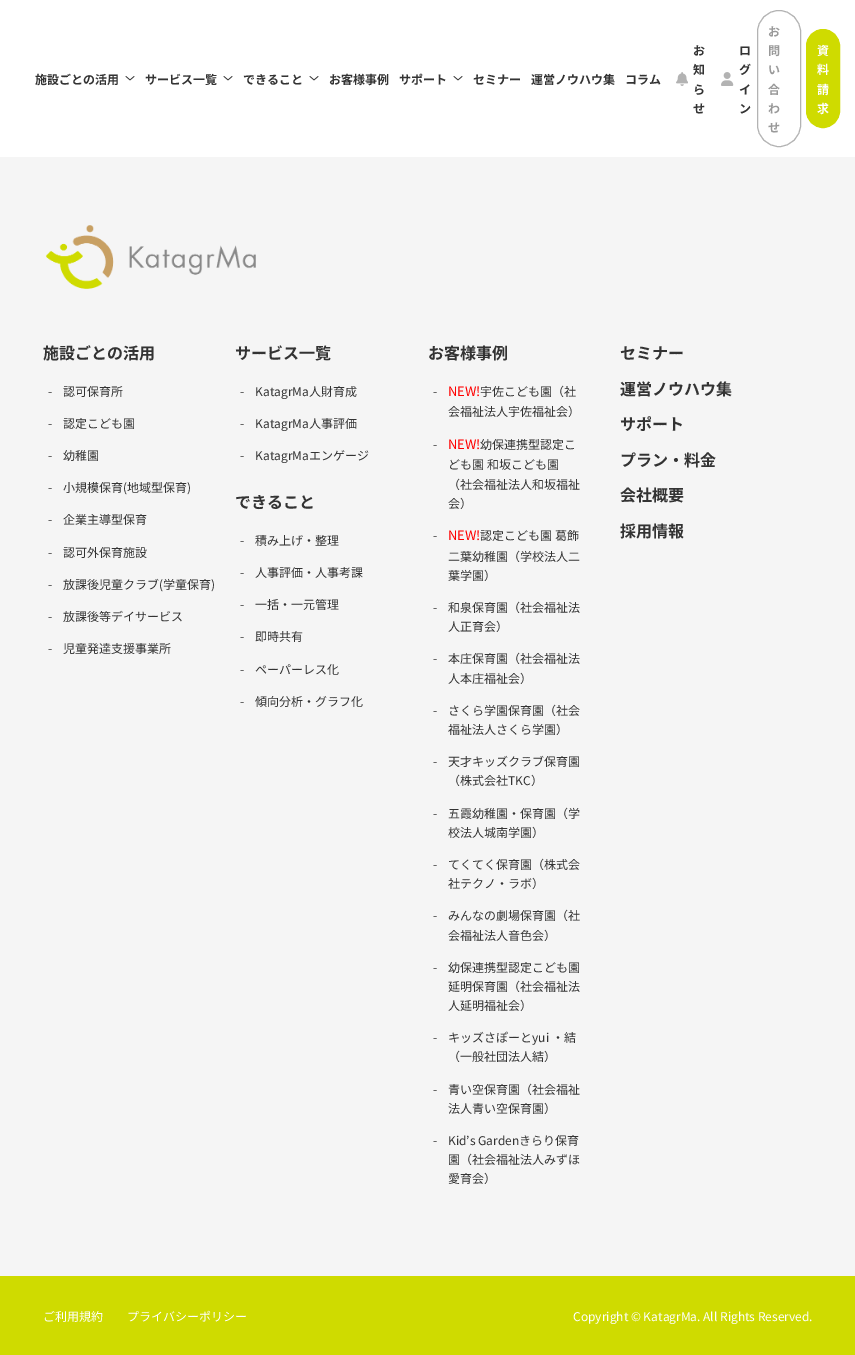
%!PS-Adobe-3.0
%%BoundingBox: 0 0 855 1355
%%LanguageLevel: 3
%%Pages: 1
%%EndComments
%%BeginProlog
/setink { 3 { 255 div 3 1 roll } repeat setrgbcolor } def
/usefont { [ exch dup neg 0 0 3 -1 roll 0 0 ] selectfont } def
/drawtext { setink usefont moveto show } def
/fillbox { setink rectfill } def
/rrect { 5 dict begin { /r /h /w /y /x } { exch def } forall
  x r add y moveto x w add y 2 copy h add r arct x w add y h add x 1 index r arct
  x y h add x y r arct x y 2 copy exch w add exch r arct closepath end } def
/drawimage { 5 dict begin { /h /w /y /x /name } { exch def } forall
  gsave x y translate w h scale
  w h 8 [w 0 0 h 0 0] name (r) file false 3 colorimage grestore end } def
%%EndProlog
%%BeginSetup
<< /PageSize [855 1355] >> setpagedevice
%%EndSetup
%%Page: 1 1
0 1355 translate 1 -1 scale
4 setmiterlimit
0 0 855 1355 245 245 245 fillbox
0 0 855 157 255 255 255 fillbox
(施設ごとの活用) 35 84 /NotoSansJP-Bold 12 51 51 51 drawtext
(assets/img1.rgb) 125 76 10 5 drawimage
(サービス一覧) 145 84 /NotoSansJP-Bold 12 51 51 51 drawtext
(assets/img1.rgb) 223 76 10 5 drawimage
(できること) 243 84 /NotoSansJP-Bold 12 51 51 51 drawtext
(assets/img1.rgb) 309 76 10 5 drawimage
(お客様事例) 329 84 /NotoSansJP-Bold 12 51 51 51 drawtext
(サポート) 399 84 /NotoSansJP-Bold 12 51 51 51 drawtext
(assets/img1.rgb) 453 76 10 5 drawimage
(セミナー) 473 84 /NotoSansJP-Bold 12 51 51 51 drawtext
(運営ノウハウ集) 531 84 /NotoSansJP-Bold 12 51 51 51 drawtext
(コラム) 625 84 /NotoSansJP-Bold 12 51 51 51 drawtext
(assets/img2.rgb) 676 72 12 14 drawimage
(お) 693 55 /NotoSansJP-Bold 12 51 51 51 drawtext
(知) 693 74 /NotoSansJP-Bold 12 51 51 51 drawtext
(ら) 693 94 /NotoSansJP-Bold 12 51 51 51 drawtext
(せ) 693 113 /NotoSansJP-Bold 12 51 51 51 drawtext
(assets/img3.rgb) 721 72 13 14 drawimage
(ロ) 739 55 /NotoSansJP-Bold 12 51 51 51 drawtext
(グ) 739 74 /NotoSansJP-Bold 12 51 51 51 drawtext
(イ) 739 94 /NotoSansJP-Bold 12 51 51 51 drawtext
(ン) 739 113 /NotoSansJP-Bold 12 51 51 51 drawtext
179 179 179 setink
757.5 10.5 43 136 21.5 rrect stroke
(お) 768 36 /NotoSansJP-Bold 12 153 153 153 drawtext
(問) 768 55 /NotoSansJP-Bold 12 153 153 153 drawtext
(い) 768 74 /NotoSansJP-Bold 12 153 153 153 drawtext
(合) 768 94 /NotoSansJP-Bold 12 153 153 153 drawtext
(わ) 768 113 /NotoSansJP-Bold 12 153 153 153 drawtext
(せ) 768 132 /NotoSansJP-Bold 12 153 153 153 drawtext
207 219 0 setink
806.5 29.5 33 98 16.5 rrect gsave fill grestore
stroke
(資) 817 55 /NotoSansJP-Bold 12 255 255 255 drawtext
(料) 817 74 /NotoSansJP-Bold 12 255 255 255 drawtext
(請) 817 94 /NotoSansJP-Bold 12 255 255 255 drawtext
(求) 817 113 /NotoSansJP-Bold 12 255 255 255 drawtext
(assets/img4.rgb) 45 225 211 64 drawimage
(施設ごとの活用) 43 359 /NotoSansJP-Bold 16 51 51 51 drawtext
(-) 48 396 /NotoSansJP-Regular 12 51 51 51 drawtext
(認可保育所) 63 396 /NotoSansJP-Regular 12 51 51 51 drawtext
(-) 48 428 /NotoSansJP-Regular 12 51 51 51 drawtext
(認定こども園) 63 428 /NotoSansJP-Regular 12 51 51 51 drawtext
(-) 48 460 /NotoSansJP-Regular 12 51 51 51 drawtext
(幼稚園) 63 460 /NotoSansJP-Regular 12 51 51 51 drawtext
(-) 48 492 /NotoSansJP-Regular 12 51 51 51 drawtext
(小規模保育\(地域型保育\)) 63 492 /NotoSansJP-Regular 12 51 51 51 drawtext
(-) 48 524 /NotoSansJP-Regular 12 51 51 51 drawtext
(企業主導型保育) 63 524 /NotoSansJP-Regular 12 51 51 51 drawtext
(-) 48 557 /NotoSansJP-Regular 12 51 51 51 drawtext
(認可外保育施設) 63 557 /NotoSansJP-Regular 12 51 51 51 drawtext
(-) 48 589 /NotoSansJP-Regular 12 51 51 51 drawtext
(放課後児童クラブ\(学童保育\)) 63 589 /NotoSansJP-Regular 12 51 51 51 drawtext
(-) 48 621 /NotoSansJP-Regular 12 51 51 51 drawtext
(放課後等デイサービス) 63 621 /NotoSansJP-Regular 12 51 51 51 drawtext
(-) 48 653 /NotoSansJP-Regular 12 51 51 51 drawtext
(児童発達支援事業所) 63 653 /NotoSansJP-Regular 12 51 51 51 drawtext
(サービス一覧) 235 359 /NotoSansJP-Bold 16 51 51 51 drawtext
(-) 240 396 /NotoSansJP-Regular 12 51 51 51 drawtext
(KatagrMa人財育成) 255 396 /NotoSansJP-Regular 12 51 51 51 drawtext
(-) 240 428 /NotoSansJP-Regular 12 51 51 51 drawtext
(KatagrMa人事評価) 255 428 /NotoSansJP-Regular 12 51 51 51 drawtext
(-) 240 460 /NotoSansJP-Regular 12 51 51 51 drawtext
(KatagrMaエンゲージ) 255 460 /NotoSansJP-Regular 12 51 51 51 drawtext
(できること) 235 508 /NotoSansJP-Bold 16 51 51 51 drawtext
(-) 240 545 /NotoSansJP-Regular 12 51 51 51 drawtext
(積み上げ・整理) 255 545 /NotoSansJP-Regular 12 51 51 51 drawtext
(-) 240 577 /NotoSansJP-Regular 12 51 51 51 drawtext
(人事評価・人事考課) 255 577 /NotoSansJP-Regular 12 51 51 51 drawtext
(-) 240 609 /NotoSansJP-Regular 12 51 51 51 drawtext
(一括・一元管理) 255 609 /NotoSansJP-Regular 12 51 51 51 drawtext
(-) 240 641 /NotoSansJP-Regular 12 51 51 51 drawtext
(即時共有) 255 641 /NotoSansJP-Regular 12 51 51 51 drawtext
(-) 240 674 /NotoSansJP-Regular 12 51 51 51 drawtext
(ペーパーレス化) 255 674 /NotoSansJP-Regular 12 51 51 51 drawtext
(-) 240 706 /NotoSansJP-Regular 12 51 51 51 drawtext
(傾向分析・グラフ化) 255 706 /NotoSansJP-Regular 12 51 51 51 drawtext
(お客様事例) 428 359 /NotoSansJP-Bold 16 51 51 51 drawtext
(-) 433 396 /NotoSansJP-Regular 12 51 51 51 drawtext
(NEW!) 448 396 /NotoSansJP-Regular 13 255 0 0 drawtext
(宇佐こども園（社) 480 396 /NotoSansJP-Regular 12 51 51 51 drawtext
(会福祉法人宇佐福祉会）) 448 416 /NotoSansJP-Regular 12 51 51 51 drawtext
(-) 433 449 /NotoSansJP-Regular 12 51 51 51 drawtext
(NEW!) 448 449 /NotoSansJP-Regular 13 255 0 0 drawtext
(幼保連携型認定こ) 480 449 /NotoSansJP-Regular 12 51 51 51 drawtext
(ども園 和坂こども園) 448 469 /NotoSansJP-Regular 12 51 51 51 drawtext
(（社会福祉法人和坂福祉) 448 489 /NotoSansJP-Regular 12 51 51 51 drawtext
(会）) 448 508 /NotoSansJP-Regular 12 51 51 51 drawtext
(-) 433 540 /NotoSansJP-Regular 12 51 51 51 drawtext
(NEW!) 448 540 /NotoSansJP-Regular 13 255 0 0 drawtext
(認定こども園 葛飾) 480 540 /NotoSansJP-Regular 12 51 51 51 drawtext
(二葉幼稚園（学校法人二) 448 561 /NotoSansJP-Regular 12 51 51 51 drawtext
(葉学園）) 448 580 /NotoSansJP-Regular 12 51 51 51 drawtext
(-) 433 612 /NotoSansJP-Regular 12 51 51 51 drawtext
(和泉保育園（社会福祉法) 448 612 /NotoSansJP-Regular 12 51 51 51 drawtext
(人正育会）) 448 631 /NotoSansJP-Regular 12 51 51 51 drawtext
(-) 433 663 /NotoSansJP-Regular 12 51 51 51 drawtext
(本庄保育園（社会福祉法) 448 663 /NotoSansJP-Regular 12 51 51 51 drawtext
(人本庄福祉会）) 448 683 /NotoSansJP-Regular 12 51 51 51 drawtext
(-) 433 715 /NotoSansJP-Regular 12 51 51 51 drawtext
(さくら学園保育園（社会) 448 715 /NotoSansJP-Regular 12 51 51 51 drawtext
(福祉法人さくら学園）) 448 734 /NotoSansJP-Regular 12 51 51 51 drawtext
(-) 433 766 /NotoSansJP-Regular 12 51 51 51 drawtext
(天才キッズクラブ保育園) 448 766 /NotoSansJP-Regular 12 51 51 51 drawtext
(（株式会社TKC）) 448 785 /NotoSansJP-Regular 12 51 51 51 drawtext
(-) 433 818 /NotoSansJP-Regular 12 51 51 51 drawtext
(五霞幼稚園・保育園（学) 448 818 /NotoSansJP-Regular 12 51 51 51 drawtext
(校法人城南学園）) 448 837 /NotoSansJP-Regular 12 51 51 51 drawtext
(-) 433 869 /NotoSansJP-Regular 12 51 51 51 drawtext
(てくてく保育園（株式会) 448 869 /NotoSansJP-Regular 12 51 51 51 drawtext
(社テクノ・ラボ）) 448 888 /NotoSansJP-Regular 12 51 51 51 drawtext
(-) 433 920 /NotoSansJP-Regular 12 51 51 51 drawtext
(みんなの劇場保育園（社) 448 920 /NotoSansJP-Regular 12 51 51 51 drawtext
(会福祉法人音色会）) 448 940 /NotoSansJP-Regular 12 51 51 51 drawtext
(-) 433 972 /NotoSansJP-Regular 12 51 51 51 drawtext
(幼保連携型認定こども園) 448 972 /NotoSansJP-Regular 12 51 51 51 drawtext
(延明保育園（社会福祉法) 448 991 /NotoSansJP-Regular 12 51 51 51 drawtext
(人延明福祉会）) 448 1010 /NotoSansJP-Regular 12 51 51 51 drawtext
(-) 433 1042 /NotoSansJP-Regular 12 51 51 51 drawtext
(キッズさぽーとyui ・結) 448 1042 /NotoSansJP-Regular 12 51 51 51 drawtext
(（一般社団法人結）) 448 1061 /NotoSansJP-Regular 12 51 51 51 drawtext
(-) 433 1094 /NotoSansJP-Regular 12 51 51 51 drawtext
(青い空保育園（社会福祉) 448 1094 /NotoSansJP-Regular 12 51 51 51 drawtext
(法人青い空保育園）) 448 1113 /NotoSansJP-Regular 12 51 51 51 drawtext
(-) 433 1145 /NotoSansJP-Regular 12 51 51 51 drawtext
(Kid’s Gardenきらり保育) 448 1145 /NotoSansJP-Regular 12 51 51 51 drawtext
(園（社会福祉法人みずほ) 448 1164 /NotoSansJP-Regular 12 51 51 51 drawtext
(愛育会）) 448 1183 /NotoSansJP-Regular 12 51 51 51 drawtext
(セミナー) 620 359 /NotoSansJP-Bold 16 51 51 51 drawtext
(運営ノウハウ集) 620 395 /NotoSansJP-Bold 16 51 51 51 drawtext
(サポート) 620 430 /NotoSansJP-Bold 16 51 51 51 drawtext
(プラン・料金) 620 466 /NotoSansJP-Bold 16 51 51 51 drawtext
(会社概要) 620 501 /NotoSansJP-Bold 16 51 51 51 drawtext
(採用情報) 620 537 /NotoSansJP-Bold 16 51 51 51 drawtext
0 1276 855 79 207 219 0 fillbox
(ご利用規約) 43 1321 /NotoSansJP-Regular 12 255 255 255 drawtext
(プライバシーポリシー) 127 1321 /NotoSansJP-Regular 12 255 255 255 drawtext
(Copyright © KatagrMa. All Rights Reserved.) 573 1321 /NotoSansJP-Regular 12 255 255 255 drawtext
showpage
%%EOF
